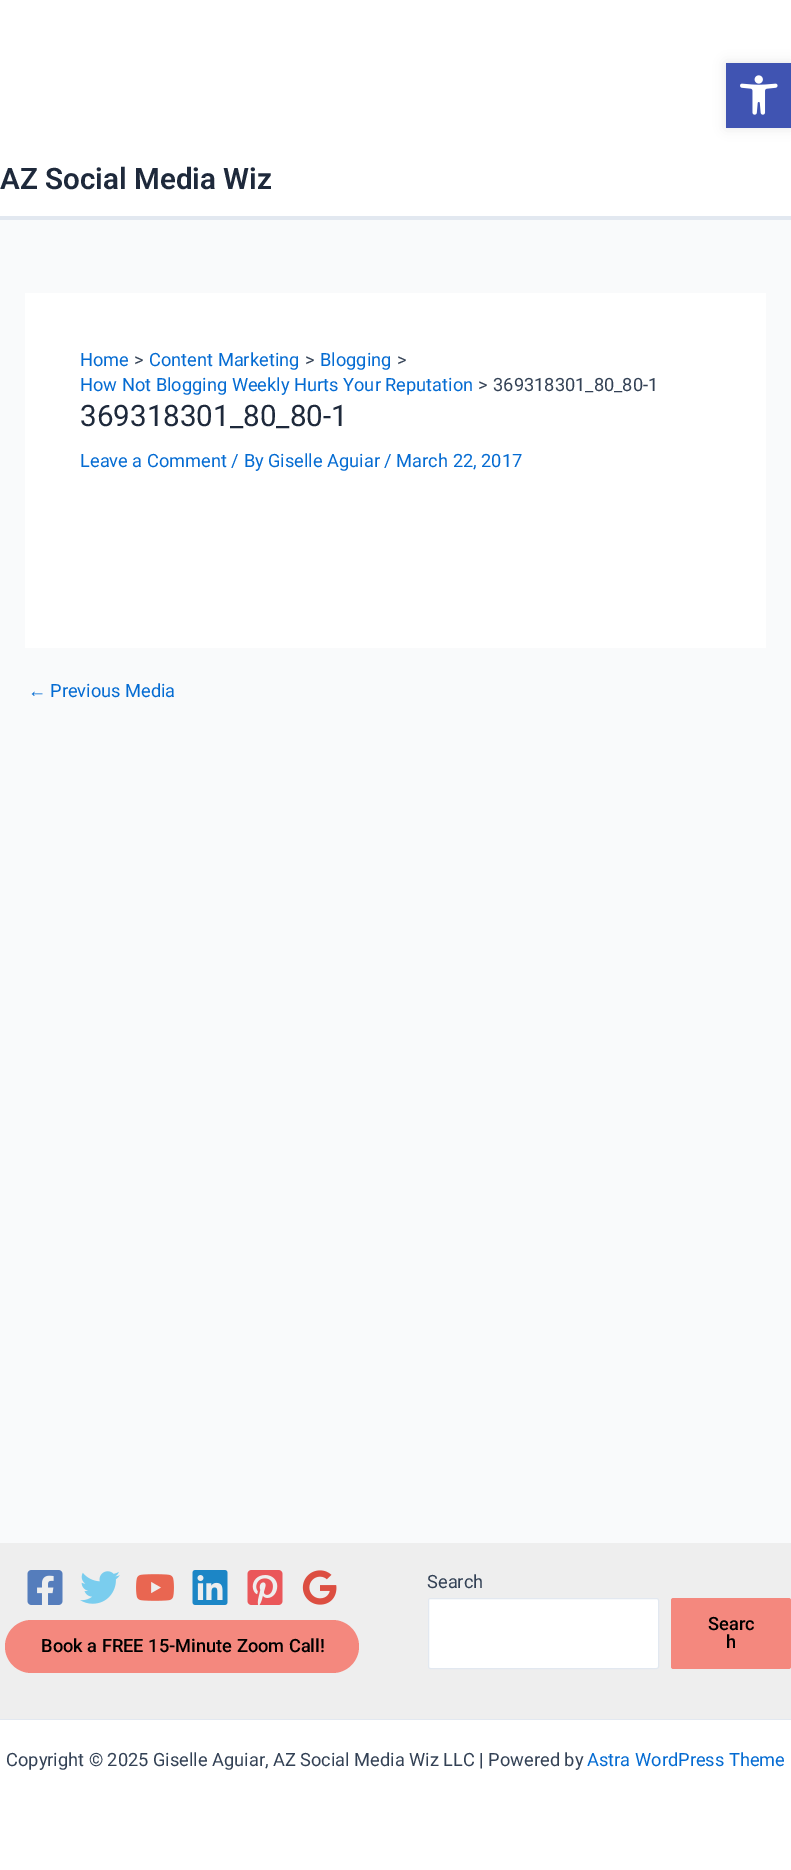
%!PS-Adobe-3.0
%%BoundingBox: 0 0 791 1870
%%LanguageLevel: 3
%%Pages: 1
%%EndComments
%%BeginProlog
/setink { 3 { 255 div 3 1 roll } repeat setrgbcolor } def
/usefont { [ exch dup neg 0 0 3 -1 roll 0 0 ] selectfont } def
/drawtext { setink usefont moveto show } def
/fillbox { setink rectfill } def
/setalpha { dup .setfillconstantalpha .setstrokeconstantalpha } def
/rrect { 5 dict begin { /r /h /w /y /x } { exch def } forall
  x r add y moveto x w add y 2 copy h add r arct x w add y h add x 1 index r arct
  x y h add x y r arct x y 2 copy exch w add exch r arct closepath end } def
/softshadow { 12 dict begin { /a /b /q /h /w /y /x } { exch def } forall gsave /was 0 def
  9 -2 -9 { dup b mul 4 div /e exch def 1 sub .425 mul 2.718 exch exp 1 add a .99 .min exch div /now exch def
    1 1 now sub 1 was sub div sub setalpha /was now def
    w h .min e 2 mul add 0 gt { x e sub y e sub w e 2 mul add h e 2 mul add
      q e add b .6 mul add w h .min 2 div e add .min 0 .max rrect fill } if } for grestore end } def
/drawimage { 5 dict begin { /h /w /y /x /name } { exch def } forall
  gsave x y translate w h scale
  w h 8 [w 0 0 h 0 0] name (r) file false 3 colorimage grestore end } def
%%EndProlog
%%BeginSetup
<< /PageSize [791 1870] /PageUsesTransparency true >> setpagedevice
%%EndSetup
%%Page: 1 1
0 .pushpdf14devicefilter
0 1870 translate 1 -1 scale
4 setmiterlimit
0 0 791 1870 249 250 251 fillbox
0 0 791 216 255 255 255 fillbox
0 0 0 setink
726 63 65 65 0 6 0.1 softshadow
726 63 65 65 64 84 178 fillbox
(assets/img1.rgb) 740 75 38 40 drawimage
0 216 791 4 226 232 240 fillbox
(AZ Social Media Wiz) 0 189 /Roboto-SemiBold 29.6 30 41 59 drawtext
25 293 741 355 255 255 255 fillbox
(Home) 80 366 /Roboto-Regular 18.25 4 107 210 drawtext
(>) 134 366 /Roboto-Regular 18.25 51 65 85 drawtext
(Content Marketing) 149 366 /Roboto-Regular 18.25 4 107 210 drawtext
(>) 305 366 /Roboto-Regular 18.25 51 65 85 drawtext
(Blogging) 320 366 /Roboto-Regular 18.25 4 107 210 drawtext
(>) 397 366 /Roboto-Regular 18.25 51 65 85 drawtext
(How Not Blogging Weekly Hurts Your Reputation) 80 391 /Roboto-Regular 18.25 4 107 210 drawtext
(>) 478 391 /Roboto-Regular 18.25 51 65 85 drawtext
(369318301_80_80-1) 493 391 /Roboto-Regular 18.25 51 65 85 drawtext
(369318301_80_80-1) 80 426 /Roboto-Regular 29.6 30 41 59 drawtext
(Leave a Comment / By Giselle Aguiar / March 22, 2017) 80 467 /Roboto-Regular 18.25 4 107 210 drawtext
(←) 28 697 /LiberationSans-Regular 18.25 4 107 210 drawtext
(Previous Media) 50 697 /Roboto-Regular 18.25 4 107 210 drawtext
0 1543 791 176 238 238 238 fillbox
(assets/img2.rgb) 27 1570 36 35 drawimage
(assets/img3.rgb) 80 1571 40 33 drawimage
(assets/img4.rgb) 136 1574 38 27 drawimage
(assets/img5.rgb) 192 1570 36 35 drawimage
(assets/img6.rgb) 247 1570 36 35 drawimage
(assets/img7.rgb) 302 1570 35 35 drawimage
244 136 126 setink
5 1620 354 53 26.5 rrect fill
(Book a FREE 15-Minute Zoom Call!) 41 1652 /Roboto-Medium 18.25 0 0 0 drawtext
(Search) 427 1588 /Roboto-Regular 18.25 51 65 85 drawtext
255 255 255 setink
428.5 1598.5 230 70 2 rrect gsave fill grestore
226 232 240 setink
stroke
244 136 126 setink
671 1598 120 71 2.5 rrect fill
(Searc) 708 1630 /Roboto-Medium 18.25 0 0 0 drawtext
(h) 726 1648 /Roboto-Medium 18.25 0 0 0 drawtext
0 1720 791 150 255 255 255 fillbox
0 1719 791 1 226 232 240 fillbox
(Copyright © 2025 Giselle Aguiar, AZ Social Media Wiz LLC | Powered by) 6 1766 /Roboto-Regular 18.25 51 65 85 drawtext
(Astra WordPress Theme) 587 1766 /Roboto-Regular 18.25 4 107 210 drawtext
.poppdf14devicefilter showpage
%%EOF
